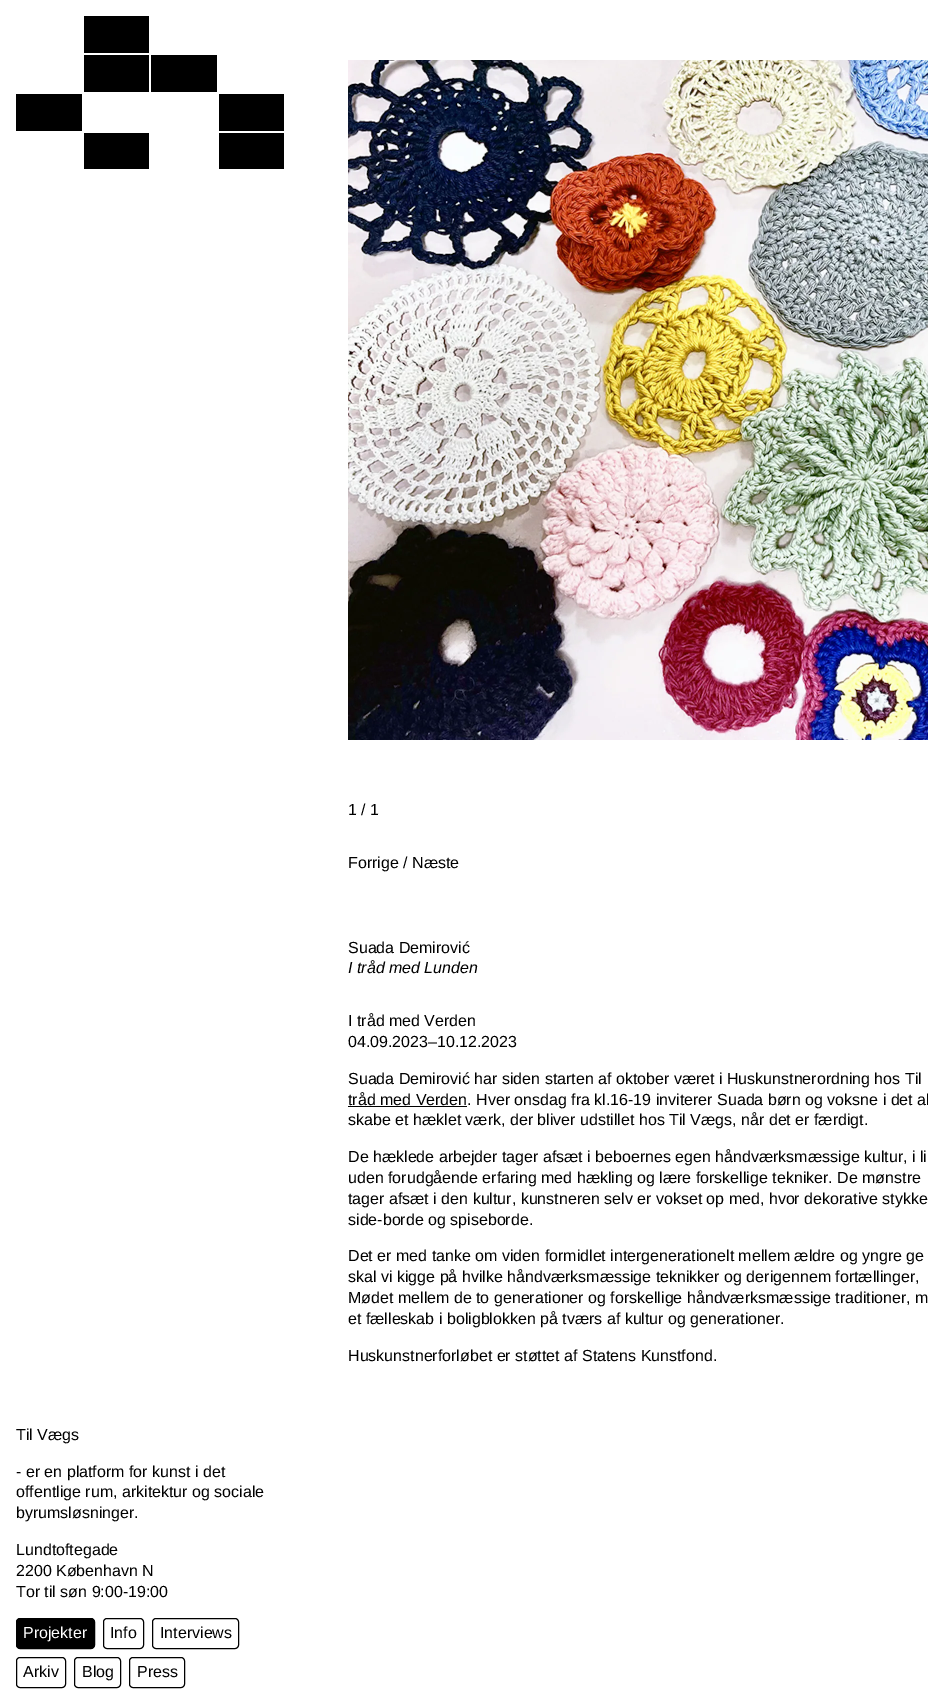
%!PS-Adobe-3.0
%%BoundingBox: 0 0 928 1704
%%LanguageLevel: 3
%%Pages: 1
%%EndComments
%%BeginProlog
/setink { 3 { 255 div 3 1 roll } repeat setrgbcolor } def
/usefont { [ exch dup neg 0 0 3 -1 roll 0 0 ] selectfont } def
/drawtext { setink usefont moveto show } def
/fillbox { setink rectfill } def
/rrect { 5 dict begin { /r /h /w /y /x } { exch def } forall
  x r add y moveto x w add y 2 copy h add r arct x w add y h add x 1 index r arct
  x y h add x y r arct x y 2 copy exch w add exch r arct closepath end } def
/drawimage { 5 dict begin { /h /w /y /x /name } { exch def } forall
  gsave x y translate w h scale
  w h 8 [w 0 0 h 0 0] name (r) file false 3 colorimage grestore end } def
%%EndProlog
%%BeginSetup
<< /PageSize [928 1704] >> setpagedevice
%%EndSetup
%%Page: 1 1
0 1704 translate 1 -1 scale
4 setmiterlimit
0 0 928 1704 255 255 255 fillbox
(assets/img1.rgb) 348 60 580 680 drawimage
(1 / 1) 348 815 /LiberationSans-Regular 16 0 0 0 drawtext
(Forrige / Næste) 348 868 /LiberationSans-Regular 16 0 0 0 drawtext
(Suada Demirović) 348 953 /LiberationSans-Regular 16 0 0 0 drawtext
(I tråd med Lunden) 348 973 /LiberationSans-Italic 16 0 0 0 drawtext
(I tråd med Verden) 348 1026 /LiberationSans-Regular 16 0 0 0 drawtext
(04.09.2023–10.12.2023) 348 1047 /LiberationSans-Regular 16 0 0 0 drawtext
(Suada Demirović har siden starten af oktober været i Huskunstnerordning hos Til) 348 1084 /LiberationSans-Regular 16 0 0 0 drawtext
348 1106 119 1 0 0 0 fillbox
(tråd med Verden. Hver onsdag fra kl.16-19 inviterer Suada børn og voksne i det al) 348 1105 /LiberationSans-Regular 16 0 0 0 drawtext
(skabe et hæklet værk, der bliver udstillet hos Til Vægs, når det er færdigt.) 348 1125 /LiberationSans-Regular 16 0 0 0 drawtext
(De hæklede arbejder tager afsæt i beboernes egen håndværksmæssige kultur, i li) 348 1162 /LiberationSans-Regular 16 0 0 0 drawtext
(uden forudgående erfaring med hækling og lære forskellige tekniker. De mønstre) 348 1183 /LiberationSans-Regular 16 0 0 0 drawtext
(tager afsæt i den kultur, kunstneren selv er vokset op med, hvor dekorative stykke) 348 1204 /LiberationSans-Regular 16 0 0 0 drawtext
(side-borde og spiseborde.) 348 1225 /LiberationSans-Regular 16 0 0 0 drawtext
(Det er med tanke om viden formidlet intergenerationelt mellem ældre og yngre ge) 348 1261 /LiberationSans-Regular 16 0 0 0 drawtext
(skal vi kigge på hvilke håndværksmæssige teknikker og derigennem fortællinger,) 348 1282 /LiberationSans-Regular 16 0 0 0 drawtext
(Mødet mellem de to generationer og forskellige håndværksmæssige traditioner, m) 348 1303 /LiberationSans-Regular 16 0 0 0 drawtext
(et fælleskab i boligblokken på tværs af kultur og generationer.) 348 1324 /LiberationSans-Regular 16 0 0 0 drawtext
(Huskunstnerforløbet er støttet af Statens Kunstfond.) 348 1361 /LiberationSans-Regular 16 0 0 0 drawtext
84 16 65 37 0 0 0 fillbox
84 55 65 37 0 0 0 fillbox
151 55 66 37 0 0 0 fillbox
16 94 66 37 0 0 0 fillbox
219 94 65 37 0 0 0 fillbox
84 133 65 36 0 0 0 fillbox
219 133 65 36 0 0 0 fillbox
(Til Vægs) 16 1440 /LiberationSans-Regular 16 0 0 0 drawtext
(- er en platform for kunst i det) 16 1477 /LiberationSans-Regular 16 0 0 0 drawtext
(offentlige rum, arkitektur og sociale) 16 1497 /LiberationSans-Regular 16 0 0 0 drawtext
(byrumsløsninger.) 16 1518 /LiberationSans-Regular 16 0 0 0 drawtext
(Lundtoftegade) 16 1555 /LiberationSans-Regular 16 0 0 0 drawtext
(2200 København N) 16 1576 /LiberationSans-Regular 16 0 0 0 drawtext
(Tor til søn 9:00-19:00) 16 1597 /LiberationSans-Regular 16 0 0 0 drawtext
16.5 1618.5 78 30 3.5 rrect gsave fill grestore
stroke
(Projekter) 23 1638 /LiberationSans-Regular 16 255 255 255 drawtext
0 0 0 setink
103.5 1618.5 40 30 3.5 rrect stroke
(Info) 110 1638 /LiberationSans-Regular 16 0 0 0 drawtext
152.5 1618.5 86 30 3.5 rrect stroke
(Interviews) 160 1638 /LiberationSans-Regular 16 0 0 0 drawtext
16.5 1657.5 49 30 3.5 rrect stroke
(Arkiv) 23 1677 /LiberationSans-Regular 16 0 0 0 drawtext
74.5 1657.5 46 30 3.5 rrect stroke
(Blog) 82 1677 /LiberationSans-Regular 16 0 0 0 drawtext
129.5 1657.5 55 30 3.5 rrect stroke
(Press) 137 1677 /LiberationSans-Regular 16 0 0 0 drawtext
showpage
%%EOF
